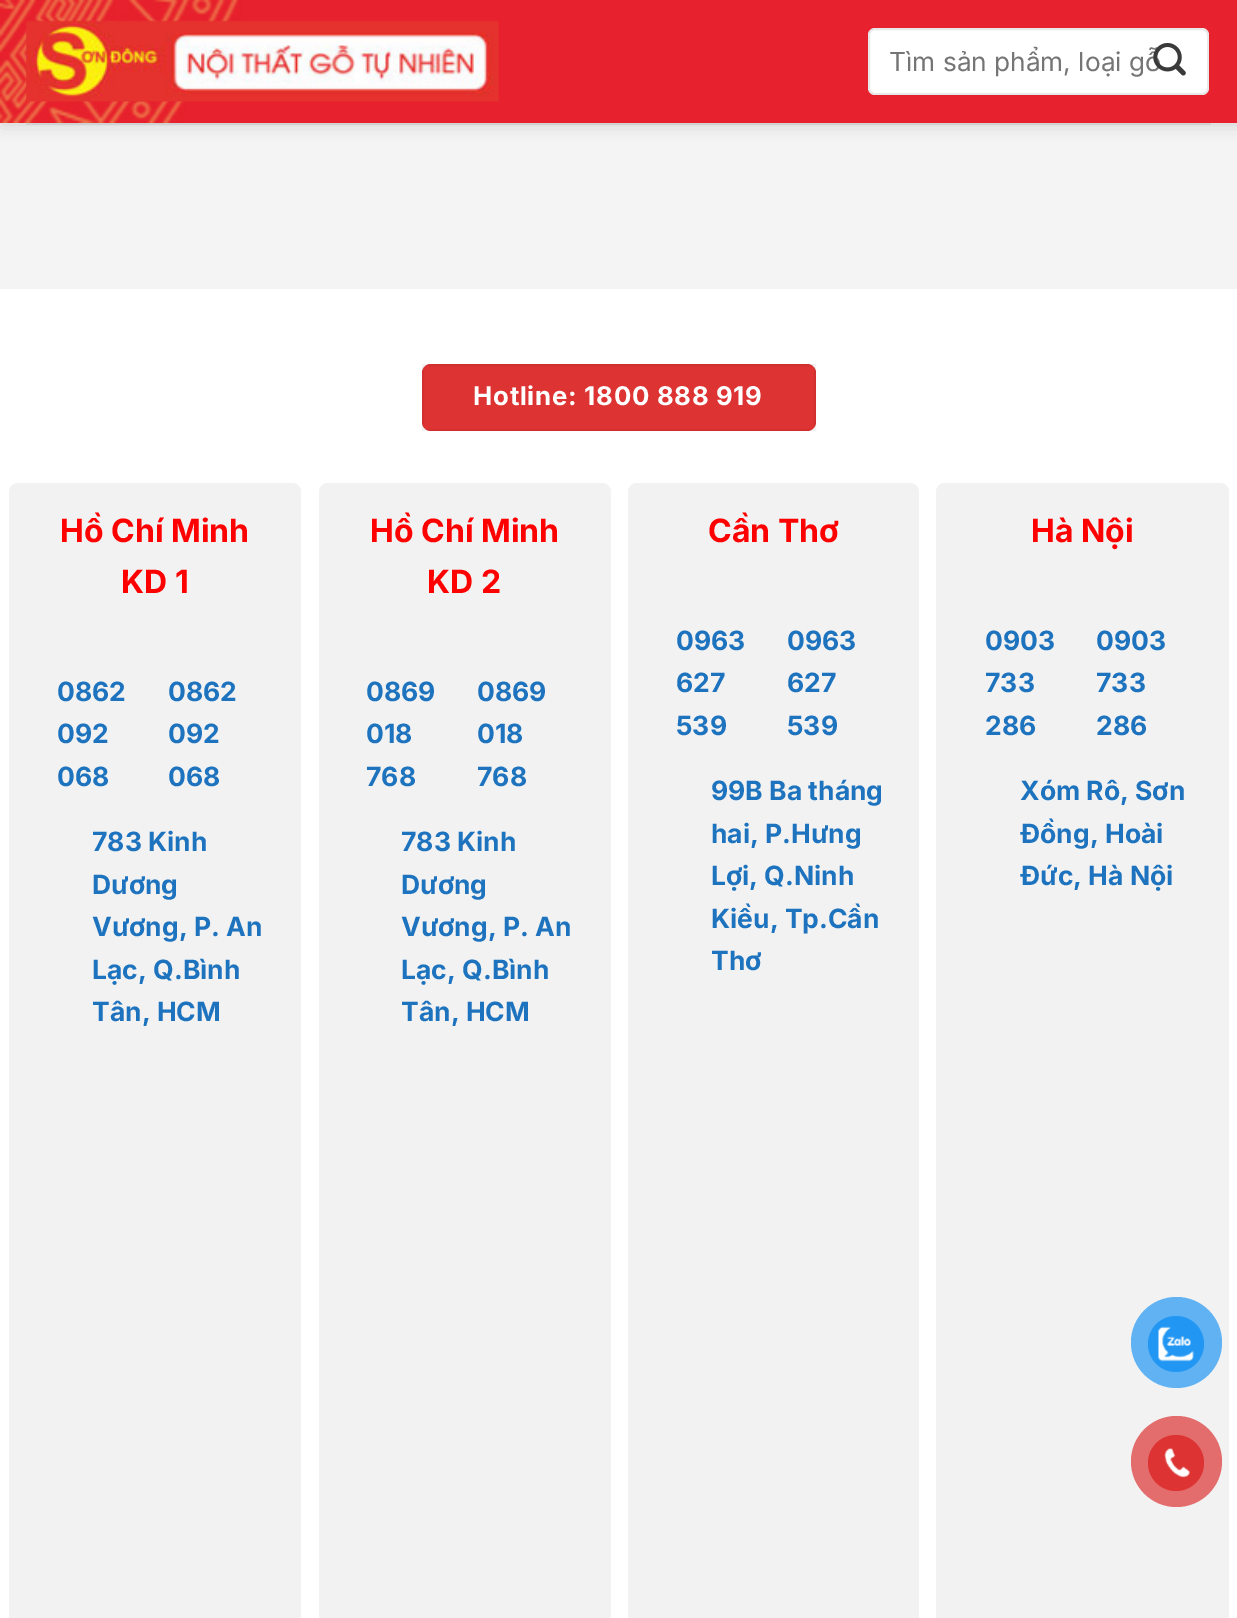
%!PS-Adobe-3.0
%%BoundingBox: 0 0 1237 1618
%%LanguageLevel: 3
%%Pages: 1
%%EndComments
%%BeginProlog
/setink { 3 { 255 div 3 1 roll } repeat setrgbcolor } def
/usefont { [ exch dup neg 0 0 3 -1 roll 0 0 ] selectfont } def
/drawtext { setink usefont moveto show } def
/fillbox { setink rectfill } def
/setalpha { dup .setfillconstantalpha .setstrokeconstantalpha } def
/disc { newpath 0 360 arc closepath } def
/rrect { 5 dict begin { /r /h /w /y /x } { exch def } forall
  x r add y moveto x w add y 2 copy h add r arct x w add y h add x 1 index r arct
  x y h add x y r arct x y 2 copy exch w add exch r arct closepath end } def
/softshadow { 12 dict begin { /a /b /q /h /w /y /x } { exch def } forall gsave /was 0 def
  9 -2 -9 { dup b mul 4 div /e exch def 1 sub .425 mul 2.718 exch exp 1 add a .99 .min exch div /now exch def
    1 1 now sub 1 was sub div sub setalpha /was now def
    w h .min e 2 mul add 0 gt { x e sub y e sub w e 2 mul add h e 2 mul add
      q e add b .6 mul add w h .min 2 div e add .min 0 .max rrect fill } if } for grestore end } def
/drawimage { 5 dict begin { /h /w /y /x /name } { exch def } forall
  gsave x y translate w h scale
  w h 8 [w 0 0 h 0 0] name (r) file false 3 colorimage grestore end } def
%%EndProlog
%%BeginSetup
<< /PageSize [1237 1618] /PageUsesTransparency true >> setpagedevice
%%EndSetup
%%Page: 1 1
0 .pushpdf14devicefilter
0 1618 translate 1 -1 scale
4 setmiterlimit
0 0 1237 1618 244 244 244 fillbox
0 0 0 setink
2 2 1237 122 0 9 0.15 softshadow
(assets/img1.rgb) 0 0 1237 123 drawimage
(assets/img2.rgb) 26 20 473 83 drawimage
255 255 255 setink
868 28 341 67 7 rrect fill
0.09 setalpha
0 0 0 setink
2 setlinewidth
869 29 339 65 6 rrect stroke
1 setalpha
(Tìm sản phẩm, loại gỗ) 889 71 /Inter-Regular 26.25 117 117 117 drawtext
(assets/img3.rgb) 1153 42 33 34 drawimage
26 123 1185 2 209 209 209 fillbox
0 289 1237 1329 255 255 255 fillbox
221 51 51 setink
422 364 394 67 9 rrect fill
0.05 setalpha
0 0 0 setink
423 365 392 65 rectstroke
/Inter-Bold 25.75 usefont
1 setalpha
255 255 255 setink
473 405 moveto 0.75 0 (Hotline: 1800 888 919) ashow
242 242 242 setink
9 483 292 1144 9 rrect fill
(Hồ Chí Minh) 60 542 /Inter-Bold 32 255 0 0 drawtext
(KD 1) 121 593 /Inter-Bold 32 255 0 0 drawtext
(0862) 57 701 /Inter-Bold 26.5 30 115 190 drawtext
(092) 57 743 /Inter-Bold 26.5 30 115 190 drawtext
(068) 57 786 /Inter-Bold 26.5 30 115 190 drawtext
(0862) 168 701 /Inter-Bold 26.5 30 115 190 drawtext
(092) 168 743 /Inter-Bold 26.5 30 115 190 drawtext
(068) 168 786 /Inter-Bold 26.5 30 115 190 drawtext
(783 Kinh) 92 851 /Inter-Bold 26.5 30 115 190 drawtext
(Dương) 92 894 /Inter-Bold 26.5 30 115 190 drawtext
(Vương, P. An) 92 936 /Inter-Bold 26.5 30 115 190 drawtext
(Lạc, Q.Bình) 92 979 /Inter-Bold 26.5 30 115 190 drawtext
(Tân, HCM) 92 1021 /Inter-Bold 26.5 30 115 190 drawtext
242 242 242 setink
319 483 292 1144 9 rrect fill
(Hồ Chí Minh) 370 542 /Inter-Bold 32 255 0 0 drawtext
(KD 2) 427 593 /Inter-Bold 32 255 0 0 drawtext
(0869) 366 701 /Inter-Bold 26.5 30 115 190 drawtext
(018) 366 743 /Inter-Bold 26.5 30 115 190 drawtext
(768) 366 786 /Inter-Bold 26.5 30 115 190 drawtext
(0869) 477 701 /Inter-Bold 26.5 30 115 190 drawtext
(018) 477 743 /Inter-Bold 26.5 30 115 190 drawtext
(768) 477 786 /Inter-Bold 26.5 30 115 190 drawtext
(783 Kinh) 401 851 /Inter-Bold 26.5 30 115 190 drawtext
(Dương) 401 894 /Inter-Bold 26.5 30 115 190 drawtext
(Vương, P. An) 401 936 /Inter-Bold 26.5 30 115 190 drawtext
(Lạc, Q.Bình) 401 979 /Inter-Bold 26.5 30 115 190 drawtext
(Tân, HCM) 401 1021 /Inter-Bold 26.5 30 115 190 drawtext
242 242 242 setink
628 483 291 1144 9 rrect fill
(Cần Thơ) 708 542 /Inter-Bold 32 255 0 0 drawtext
(0963) 676 650 /Inter-Bold 26.5 30 115 190 drawtext
(627) 676 692 /Inter-Bold 26.5 30 115 190 drawtext
(539) 676 735 /Inter-Bold 26.5 30 115 190 drawtext
(0963) 787 650 /Inter-Bold 26.5 30 115 190 drawtext
(627) 787 692 /Inter-Bold 26.5 30 115 190 drawtext
(539) 787 735 /Inter-Bold 26.5 30 115 190 drawtext
(99B Ba tháng) 711 800 /Inter-Bold 26.5 30 115 190 drawtext
(hai, P.Hưng) 711 843 /Inter-Bold 26.5 30 115 190 drawtext
(Lợi, Q.Ninh) 711 885 /Inter-Bold 26.5 30 115 190 drawtext
(Kiều, Tp.Cần) 711 928 /Inter-Bold 26.5 30 115 190 drawtext
(Thơ) 711 970 /Inter-Bold 26.5 30 115 190 drawtext
242 242 242 setink
936 483 293 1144 9 rrect fill
(Hà Nội) 1031 542 /Inter-Bold 32 255 0 0 drawtext
(0903) 985 650 /Inter-Bold 26.5 30 115 190 drawtext
(733) 985 692 /Inter-Bold 26.5 30 115 190 drawtext
(286) 985 735 /Inter-Bold 26.5 30 115 190 drawtext
(0903) 1096 650 /Inter-Bold 26.5 30 115 190 drawtext
(733) 1096 692 /Inter-Bold 26.5 30 115 190 drawtext
(286) 1096 735 /Inter-Bold 26.5 30 115 190 drawtext
(Xóm Rô, Sơn) 1020 800 /Inter-Bold 26.5 30 115 190 drawtext
(Đồng, Hoài) 1020 843 /Inter-Bold 26.5 30 115 190 drawtext
(Đức, Hà Nội) 1020 885 /Inter-Bold 26.5 30 115 190 drawtext
96 178 243 setink
1176.5 1342.5 45.5 disc fill
33 150 243 setink
1176 1344 28 disc fill
(assets/img4.rgb) 1158 1326 36 36 drawimage
227 108 108 setink
1176.5 1461.5 45.5 disc fill
221 51 51 setink
1176 1463 28 disc fill
(assets/img5.rgb) 1164 1448 26 30 drawimage
.poppdf14devicefilter showpage
%%EOF
